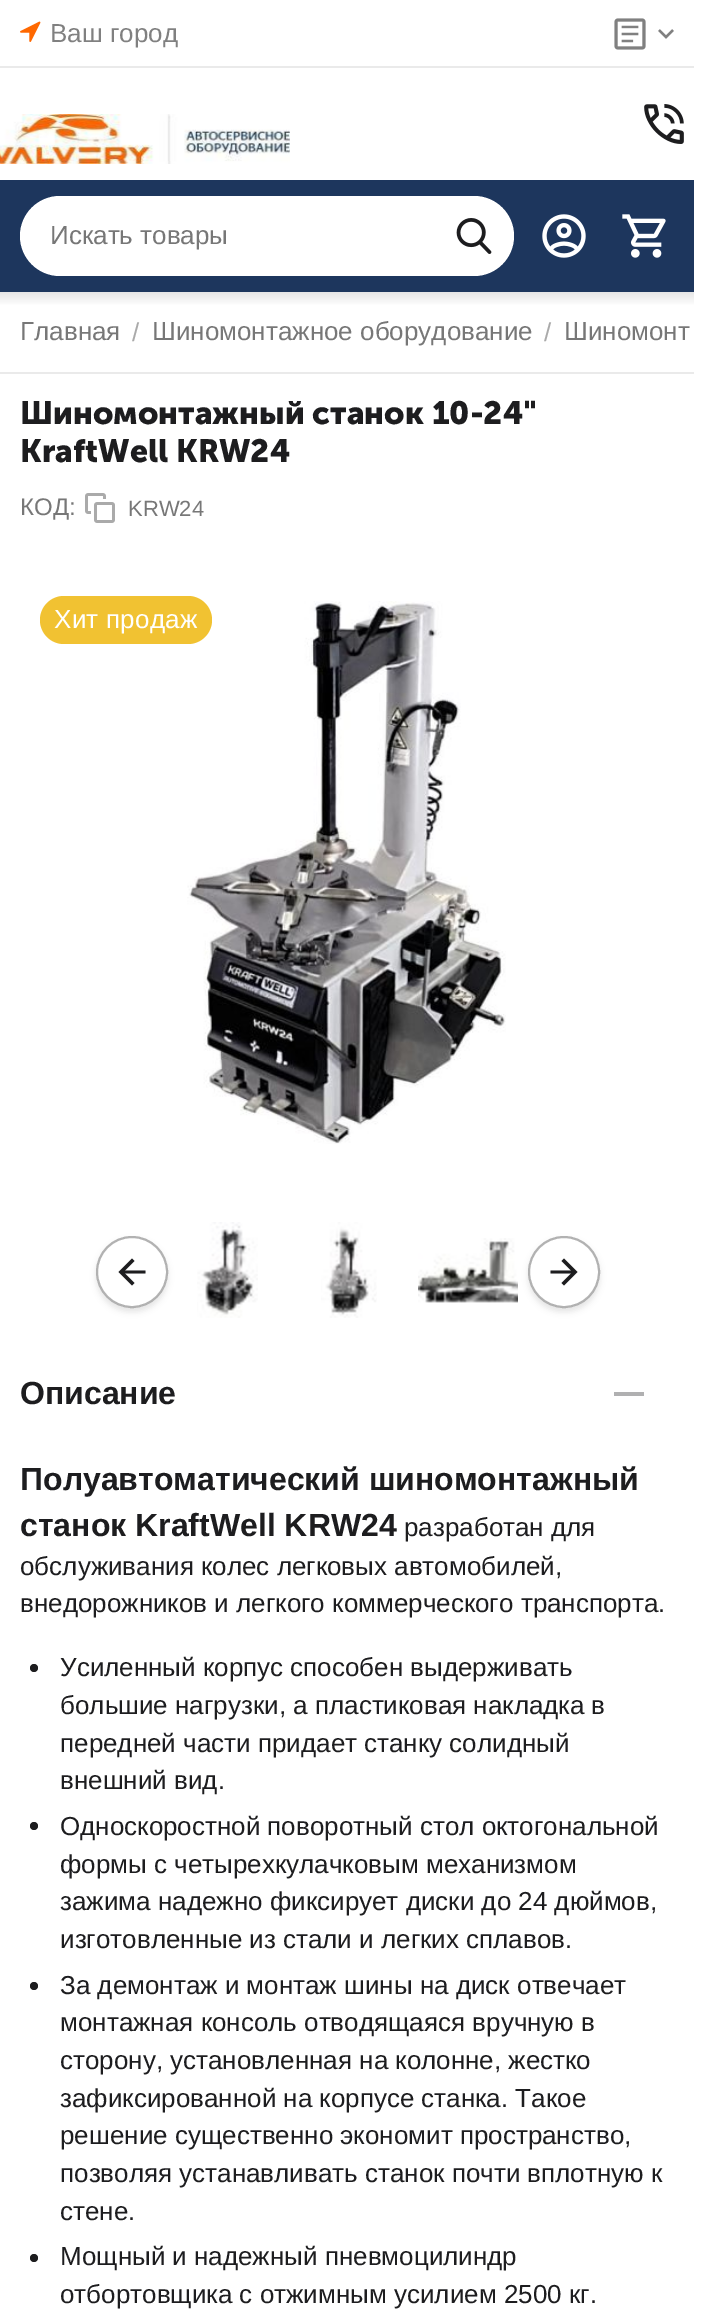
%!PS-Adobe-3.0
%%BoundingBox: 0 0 710 2321
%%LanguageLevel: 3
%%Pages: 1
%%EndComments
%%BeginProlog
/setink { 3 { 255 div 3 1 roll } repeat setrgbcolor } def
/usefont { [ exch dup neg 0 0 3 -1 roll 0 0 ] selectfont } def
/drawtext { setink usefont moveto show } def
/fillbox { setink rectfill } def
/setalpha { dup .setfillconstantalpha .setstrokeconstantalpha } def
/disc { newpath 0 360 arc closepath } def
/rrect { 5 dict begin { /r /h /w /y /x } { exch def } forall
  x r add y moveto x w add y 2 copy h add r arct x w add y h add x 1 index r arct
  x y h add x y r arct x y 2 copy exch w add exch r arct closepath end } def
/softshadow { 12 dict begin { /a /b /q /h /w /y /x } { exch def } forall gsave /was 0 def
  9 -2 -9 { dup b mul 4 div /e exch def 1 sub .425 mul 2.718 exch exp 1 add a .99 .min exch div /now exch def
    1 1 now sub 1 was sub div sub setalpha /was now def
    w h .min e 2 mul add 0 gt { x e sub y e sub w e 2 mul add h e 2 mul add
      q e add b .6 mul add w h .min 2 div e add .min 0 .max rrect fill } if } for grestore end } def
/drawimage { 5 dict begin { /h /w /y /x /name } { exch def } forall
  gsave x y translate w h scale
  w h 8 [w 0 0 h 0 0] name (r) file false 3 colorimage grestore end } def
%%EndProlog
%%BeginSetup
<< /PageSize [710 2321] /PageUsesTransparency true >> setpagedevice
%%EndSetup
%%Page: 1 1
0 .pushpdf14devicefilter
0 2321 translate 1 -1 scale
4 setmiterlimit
0 0 710 2321 255 255 255 fillbox
0 66 694 2 234 234 234 fillbox
(assets/img1.rgb) 20 21 21 21 drawimage
(Ваш город) 50 42 /LiberationSans-Regular 26 128 128 128 drawtext
(assets/img2.rgb) 614 18 32 32 drawimage
(assets/img3.rgb) 658 29 16 10 drawimage
(assets/img4.rgb) 0 114 290 50 drawimage
(assets/img5.rgb) 644 104 40 40 drawimage
0 180 694 112 29 54 93 fillbox
255 255 255 setink
20 196 494 80 40 rrect fill
(Искать товары) 50 244 /LiberationSans-Regular 26 119 119 119 drawtext
(assets/img6.rgb) 456 218 36 36 drawimage
(assets/img7.rgb) 542 214 44 44 drawimage
(assets/img8.rgb) 622 214 44 44 drawimage
gsave 0 292 moveto 694 292 lineto 694 305 lineto 0 305 lineto closepath clip newpath
<< /ShadingType 2 /ColorSpace /DeviceRGB /Coords [347 292 347 306] /Extend [true true] /Function << /FunctionType 2 /Domain [0 1] /C0 [0.902 0.902 0.902] /C1 [1 1 1] /N 1 >> >> shfill grestore
0 372 694 2 234 234 234 fillbox
(Главная) 20 340 /LiberationSans-Regular 26 119 119 119 drawtext
(/) 132 341 /LiberationSans-Regular 26 170 170 170 drawtext
(Шиномонтажное оборудование) 152 340 /LiberationSans-Regular 26 119 119 119 drawtext
(/) 544 341 /LiberationSans-Regular 26 170 170 170 drawtext
(Шиномонт) 564 340 /LiberationSans-Regular 26 119 119 119 drawtext
(Шиномонтажный станок 10-24") 20 424 /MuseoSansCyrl-Bold 32 29 29 31 drawtext
(KraftWell KRW24) 20 462 /MuseoSansCyrl-Bold 32 29 29 31 drawtext
(КОД:) 20 515 /LiberationSans-Regular 24 119 119 119 drawtext
(assets/img9.rgb) 85 493 30 30 drawimage
(KRW24) 128 516 /LiberationSans-Regular 22 119 119 119 drawtext
(assets/img10.rgb) 187 601 319 543 drawimage
241 194 50 setink
40 596 172 48 24 rrect fill
/LiberationSans-Regular 26 usefont
255 255 255 setink
54 628 moveto 0.25 0 (Хит продаж) ashow
(assets/img11.rgb) 197 1222 61 96 drawimage
(assets/img12.rgb) 321 1222 56 96 drawimage
(assets/img13.rgb) 418 1238 100 65 drawimage
gsave
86 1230 moveto 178 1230 lineto 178 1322 lineto 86 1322 lineto closepath 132 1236 moveto 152 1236 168 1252 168 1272 curveto 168 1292 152 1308 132 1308 curveto 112 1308 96 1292 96 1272 curveto 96 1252 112 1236 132 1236 curveto closepath eoclip newpath
0 0 0 setink
96 1240 72 72 36 3 0.1 softshadow
grestore
0.8 setalpha
132 1272 36 disc fill
0.3 setalpha
0 0 0 setink
2 setlinewidth
132 1272 35 disc stroke
1 setalpha
29 29 31 setink
145.5 1270.5 moveto 125 1270.5 lineto 134.5 1261 lineto 132 1258.5 lineto 118.5 1272 lineto 132 1285.5 lineto 134.5 1283 lineto 125 1273.5 lineto 145.5 1273.5 lineto closepath fill
gsave
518 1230 moveto 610 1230 lineto 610 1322 lineto 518 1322 lineto closepath 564 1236 moveto 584 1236 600 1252 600 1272 curveto 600 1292 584 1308 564 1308 curveto 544 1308 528 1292 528 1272 curveto 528 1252 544 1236 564 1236 curveto closepath eoclip newpath
0 0 0 setink
528 1240 72 72 36 3 0.1 softshadow
grestore
0.8 setalpha
255 255 255 setink
564 1272 36 disc fill
0.3 setalpha
0 0 0 setink
564 1272 35 disc stroke
1 setalpha
29 29 31 setink
571 1273.5 moveto 550.5 1273.5 lineto 550.5 1270.5 lineto 571 1270.5 lineto 561.5 1261 lineto 564 1258.5 lineto 577.5 1272 lineto 564 1285.5 lineto 561.5 1283 lineto closepath fill
(Описание) 20 1404 /LiberationSans-Bold 32 29 29 31 drawtext
614 1392 30 4 176 176 177 fillbox
(Полуавтоматический шиномонтажный) 20 1490 /LiberationSans-Bold 32 29 29 31 drawtext
(станок KraftWell KRW24) 20 1536 /LiberationSans-Bold 32 29 29 31 drawtext
(разработан для) 404 1536 /LiberationSans-Regular 26 29 29 31 drawtext
(обслуживания колес легковых автомобилей,) 20 1575 /LiberationSans-Regular 26 29 29 31 drawtext
(внедорожников и легкого коммерческого транспорта.) 20 1612 /LiberationSans-Regular 26 29 29 31 drawtext
34 1668 4 disc fill
(Усиленный корпус способен выдерживать) 60 1676 /LiberationSans-Regular 26 29 29 31 drawtext
(большие нагрузки, а пластиковая накладка в) 60 1714 /LiberationSans-Regular 26 29 29 31 drawtext
(передней части придает станку солидный) 60 1752 /LiberationSans-Regular 26 29 29 31 drawtext
(внешний вид.) 60 1789 /LiberationSans-Regular 26 29 29 31 drawtext
34 1826 4 disc fill
(Односкоростной поворотный стол октогональной) 60 1835 /LiberationSans-Regular 26 29 29 31 drawtext
(формы с четырехкулачковым механизмом) 60 1873 /LiberationSans-Regular 26 29 29 31 drawtext
(зажима надежно фиксирует диски до 24 дюймов,) 60 1910 /LiberationSans-Regular 26 29 29 31 drawtext
(изготовленные из стали и легких сплавов.) 60 1948 /LiberationSans-Regular 26 29 29 31 drawtext
34 1986 4 disc fill
(За демонтаж и монтаж шины на диск отвечает) 60 1994 /LiberationSans-Regular 26 29 29 31 drawtext
(монтажная консоль отводящаяся вручную в) 60 2031 /LiberationSans-Regular 26 29 29 31 drawtext
(сторону, установленная на колонне, жестко) 60 2069 /LiberationSans-Regular 26 29 29 31 drawtext
(зафиксированной на корпусе станка. Такое) 60 2107 /LiberationSans-Regular 26 29 29 31 drawtext
(решение существенно экономит пространство,) 60 2144 /LiberationSans-Regular 26 29 29 31 drawtext
(позволяя устанавливать станок почти вплотную к) 60 2182 /LiberationSans-Regular 26 29 29 31 drawtext
(стене.) 60 2220 /LiberationSans-Regular 26 29 29 31 drawtext
34 2258 4 disc fill
(Мощный и надежный пневмоцилиндр) 60 2265 /LiberationSans-Regular 26 29 29 31 drawtext
(отбортовщика с отжимным усилием 2500 кг.) 60 2303 /LiberationSans-Regular 26 29 29 31 drawtext
.poppdf14devicefilter showpage
%%EOF
